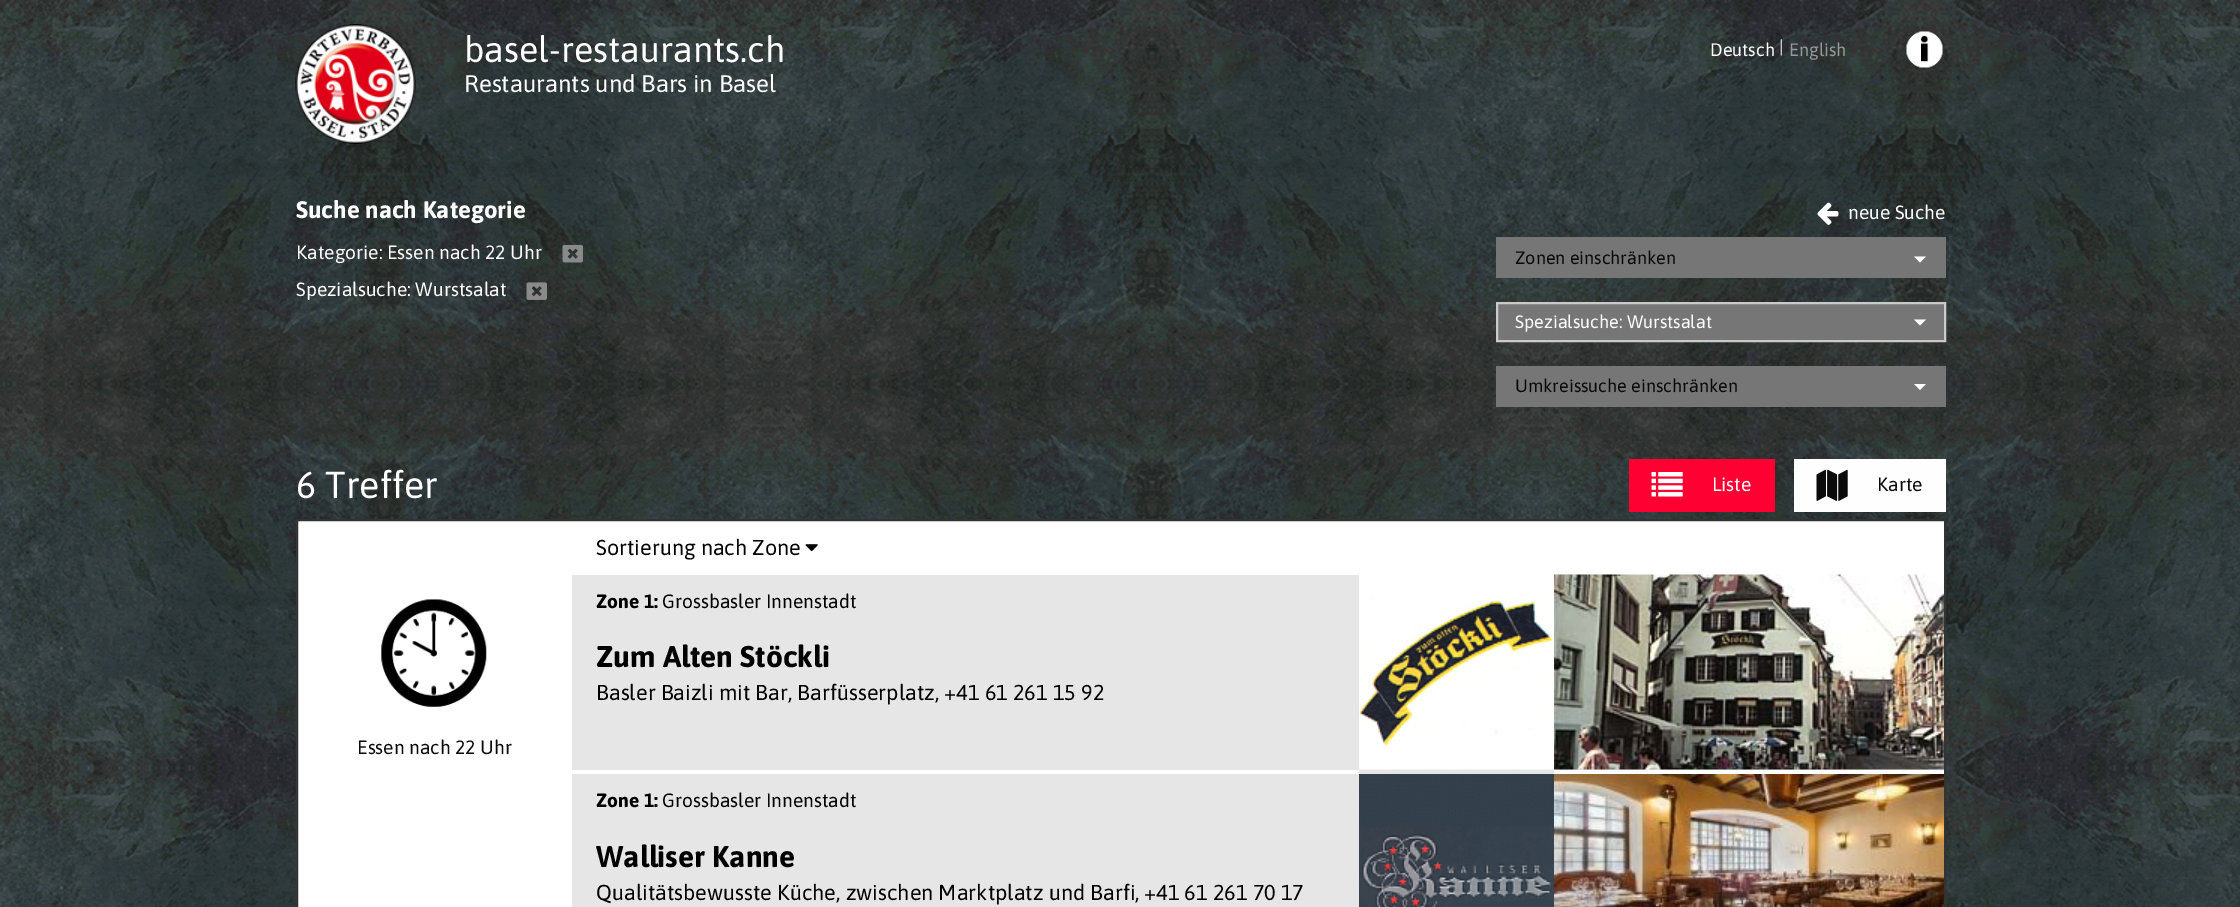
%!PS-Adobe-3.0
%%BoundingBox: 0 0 2240 907
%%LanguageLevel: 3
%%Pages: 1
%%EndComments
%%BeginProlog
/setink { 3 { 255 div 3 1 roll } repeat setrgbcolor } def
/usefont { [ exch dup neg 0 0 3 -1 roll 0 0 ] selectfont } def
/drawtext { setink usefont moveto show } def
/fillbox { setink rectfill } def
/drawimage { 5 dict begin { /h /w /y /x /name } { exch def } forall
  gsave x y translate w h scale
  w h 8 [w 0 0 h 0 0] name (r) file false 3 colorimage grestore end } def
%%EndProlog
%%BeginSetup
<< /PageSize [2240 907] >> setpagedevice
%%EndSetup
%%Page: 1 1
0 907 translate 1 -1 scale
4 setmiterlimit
0 0 2240 907 255 255 255 fillbox
(assets/img1.rgb) 0 0 2240 907 drawimage
(assets/img2.rgb) 295 24 121 120 drawimage
(basel-restaurants.ch) 464 62 /Asap-Regular 36 255 255 255 drawtext
(Restaurants und Bars in Basel) 464 92 /Asap-Regular 24 255 255 255 drawtext
(Deutsch) 1710 56 /Asap-Regular 18 255 255 255 drawtext
(|) 1779 53 /Asap-Regular 18 255 255 255 drawtext
(English) 1789 56 /Asap-Regular 18 150 154 154 drawtext
(assets/img3.rgb) 1906 31 37 37 drawimage
(Suche nach Kategorie) 296 218 /Asap-Bold 24 255 255 255 drawtext
(assets/img4.rgb) 1817 202 22 23 drawimage
(neue Suche) 1848 219 /Asap-Regular 19.25 255 255 255 drawtext
(Kategorie: Essen nach 22 Uhr) 296 259 /Asap-Regular 19.25 255 255 255 drawtext
(assets/img5.rgb) 562 244 21 19 drawimage
(Spezialsuche: Wurstsalat) 296 296 /Asap-Regular 19.25 255 255 255 drawtext
(assets/img6.rgb) 526 282 21 18 drawimage
1496 237 450 41 118 118 118 fillbox
(Zonen einschränken) 1515 264 /Asap-Regular 18 10 10 10 drawtext
254 254 254 setink
1914 256.5 moveto 1926 256.5 lineto 1920 262.5 lineto closepath fill
118 118 118 setink
1497 303 moveto 1945 303 lineto 1945 341 lineto 1497 341 lineto closepath gsave fill grestore
202 202 202 setink
2 setlinewidth
stroke
(Spezialsuche: Wurstsalat) 1515 328 /Asap-Regular 18 255 255 255 drawtext
254 254 254 setink
1914 319.5 moveto 1926 319.5 lineto 1920 325.5 lineto closepath fill
1496 366 450 41 118 118 118 fillbox
(Umkreissuche einschränken) 1515 392 /Asap-Regular 18 10 10 10 drawtext
254 254 254 setink
1914 384 moveto 1926 384 lineto 1920 390 lineto closepath fill
(6 Treffer) 296 498 /Asap-Regular 37.5 255 255 255 drawtext
1629 459 146 53 255 0 51 fillbox
(assets/img7.rgb) 1651 472 32 25 drawimage
(Liste) 1712 491 /Asap-Regular 19.25 255 255 255 drawtext
1794 459 152 53 254 254 254 fillbox
(assets/img8.rgb) 1816 469 32 32 drawimage
(Karte) 1877 491 /Asap-Regular 19.25 10 10 10 drawtext
255 255 255 setink
297 520 moveto 1945 520 lineto 1945 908 lineto 297 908 lineto closepath gsave fill grestore
51 51 51 setink
stroke
(Sortierung nach Zone) 596 555 /Asap-Regular 21.6 0 0 0 drawtext
(assets/img9.rgb) 805 544 13 8 drawimage
(assets/img10.rgb) 381 599 106 108 drawimage
(Essen nach 22 Uhr) 357 754 /Asap-Regular 19.25 10 10 10 drawtext
572 575 1372 195 230 230 230 fillbox
(Zone 1:) 596 608 /Asap-Bold 19.25 0 0 0 drawtext
(Grossbasler Innenstadt) 662 608 /Asap-Regular 19.25 0 0 0 drawtext
1359 770 195 4 230 230 230 fillbox
(assets/img11.rgb) 1359 575 195 195 drawimage
(assets/img12.rgb) 1554 574 390 196 drawimage
(Zum Alten Stöckli) 596 667 /Asap-Bold 30 0 0 0 drawtext
(Basler Baizli mit Bar, Barfüsserplatz, +41 61 261 15 92) 596 700 /Asap-Regular 21.6 0 0 0 drawtext
572 774 787 133 230 230 230 fillbox
(Zone 1:) 596 807 /Asap-Bold 19.25 0 0 0 drawtext
(Grossbasler Innenstadt) 662 807 /Asap-Regular 19.25 0 0 0 drawtext
(assets/img13.rgb) 1359 774 195 133 drawimage
(assets/img14.rgb) 1554 774 390 133 drawimage
(Walliser Kanne) 596 867 /Asap-Bold 30 0 0 0 drawtext
(Qualitätsbewusste Küche, zwischen Marktplatz und Barfi,) 596 900 /Asap-Regular 21.6 0 0 0 drawtext
(+41 61 261 70 17) 1144 900 /Asap-Regular 21.6 0 0 0 drawtext
showpage
%%EOF
